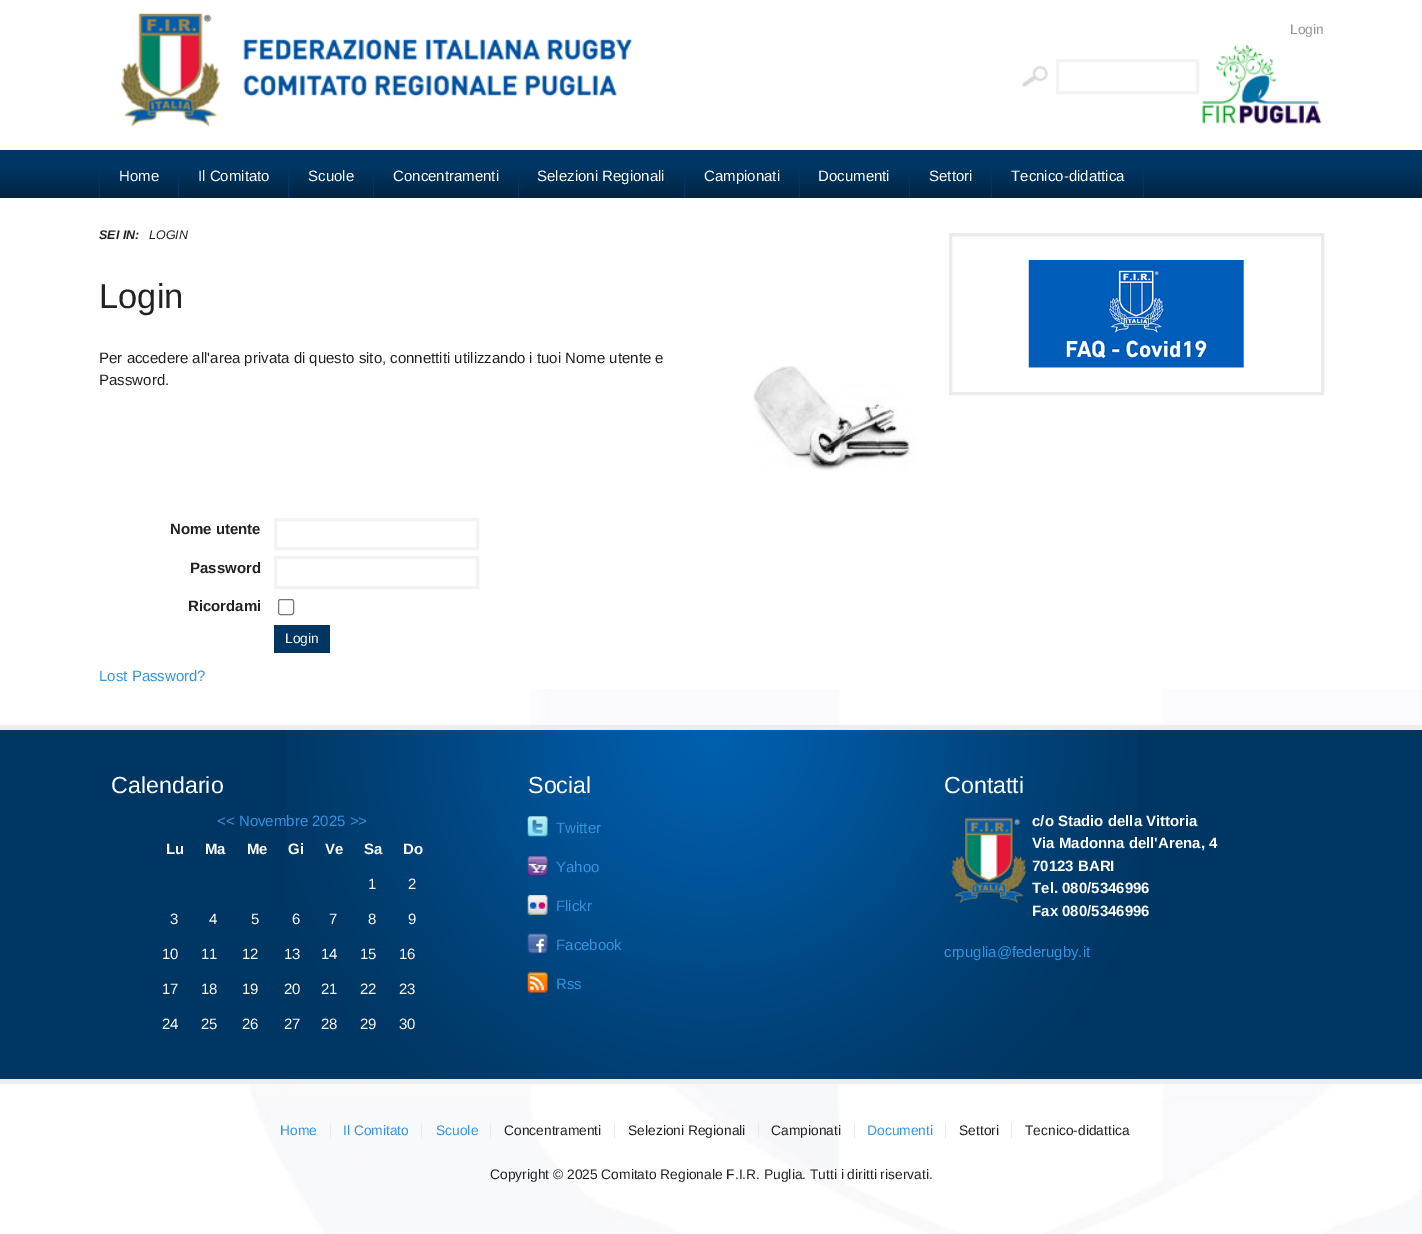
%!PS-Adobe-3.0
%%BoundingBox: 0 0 1422 1234
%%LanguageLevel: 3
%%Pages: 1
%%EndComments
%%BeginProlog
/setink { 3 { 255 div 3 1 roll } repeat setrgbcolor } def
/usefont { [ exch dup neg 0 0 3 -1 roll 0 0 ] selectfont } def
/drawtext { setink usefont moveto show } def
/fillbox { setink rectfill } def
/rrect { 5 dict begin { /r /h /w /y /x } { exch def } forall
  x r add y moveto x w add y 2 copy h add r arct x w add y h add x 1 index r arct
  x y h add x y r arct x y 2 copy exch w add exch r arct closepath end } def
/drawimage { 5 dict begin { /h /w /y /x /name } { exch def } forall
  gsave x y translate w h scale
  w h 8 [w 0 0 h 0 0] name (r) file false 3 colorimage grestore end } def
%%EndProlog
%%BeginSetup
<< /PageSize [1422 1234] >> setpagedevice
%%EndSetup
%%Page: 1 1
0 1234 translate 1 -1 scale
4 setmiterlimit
0 0 1422 1234 255 255 255 fillbox
(assets/img1.rgb) 246 689 1176 545 drawimage
(assets/img2.rgb) 121 13 511 114 drawimage
(Login) 1290 34 /LiberationSans-Regular 13.8 150 150 150 drawtext
(assets/img3.rgb) 1202 44 120 80 drawimage
(assets/img4.rgb) 1022 66 26 21 drawimage
243 243 243 setink
3 setlinewidth
1057.5 60.5 140 32 rectstroke
0 150 1422 48 0 54 99 fillbox
(assets/img5.rgb) 0 170 1422 28 drawimage
1143 170 1 28 0 54 99 fillbox
99 170 1 28 0 54 99 fillbox
(Home) 119 181 /LiberationSans-Regular 15 255 255 255 drawtext
178 170 1 28 0 54 99 fillbox
(Il Comitato) 198 181 /LiberationSans-Regular 15 255 255 255 drawtext
288 170 1 28 0 54 99 fillbox
(Scuole) 308 181 /LiberationSans-Regular 15 255 255 255 drawtext
373 170 1 28 0 54 99 fillbox
(Concentramenti) 393 181 /LiberationSans-Regular 15 255 255 255 drawtext
518 170 1 28 0 54 99 fillbox
(Selezioni Regionali) 537 181 /LiberationSans-Regular 15 255 255 255 drawtext
684 170 1 28 0 54 99 fillbox
(Campionati) 704 181 /LiberationSans-Regular 15 255 255 255 drawtext
799 170 1 28 0 54 99 fillbox
(Documenti) 818 181 /LiberationSans-Regular 15 255 255 255 drawtext
909 170 1 28 0 54 99 fillbox
(Settori) 929 181 /LiberationSans-Regular 15 255 255 255 drawtext
991 170 1 28 0 54 99 fillbox
(Tecnico-didattica) 1011 181 /LiberationSans-Regular 15 255 255 255 drawtext
(SEI IN:) 99 239 /LiberationSans-BoldItalic 12.5 34 34 34 drawtext
(LOGIN) 149 239 /LiberationSans-Italic 12.5 34 34 34 drawtext
(Login) 99 308 /LiberationSans-Regular 34.5 34 34 34 drawtext
(Per accedere all'area privata di questo sito, connettiti utilizzando i tuoi Nome utente e) 99 363 /LiberationSans-Regular 15 34 34 34 drawtext
(Password.) 99 385 /LiberationSans-Regular 15 34 34 34 drawtext
(assets/img6.rgb) 753 366 163 105 drawimage
(Nome utente) 170 534 /LiberationSans-Bold 15 34 34 34 drawtext
243 243 243 setink
275.5 519.5 202 29 rectstroke
(Password) 190 573 /LiberationSans-Bold 15 34 34 34 drawtext
243 243 243 setink
275.5 557.5 202 30 rectstroke
(Ricordami) 188 611 /LiberationSans-Bold 15 34 34 34 drawtext
118 118 118 setink
1 setlinewidth
278.5 599.5 15 15 2 rrect stroke
274 625 56 28 0 54 99 fillbox
(Login) 285 643 /LiberationSans-Regular 13.8 255 255 255 drawtext
(Lost Password?) 99 681 /LiberationSans-Regular 15 53 147 225 drawtext
235 235 235 setink
3 setlinewidth
950.5 234.5 372 159 rectstroke
(assets/img7.rgb) 1028 260 216 108 drawimage
0 730 1422 349 0 54 99 fillbox
(assets/img8.rgb) 286 730 852 349 drawimage
0 725 1422 5 237 237 237 fillbox
(Calendario) 111 793 /LiberationSans-Regular 23.25 255 255 255 drawtext
(<< Novembre 2025 >>) 217 826 /LiberationSans-Regular 15 53 147 225 drawtext
(Lu) 166 854 /LiberationSans-Bold 15 255 255 255 drawtext
(Ma) 205 854 /LiberationSans-Bold 15 255 255 255 drawtext
(Me) 247 854 /LiberationSans-Bold 15 255 255 255 drawtext
(Gi) 288 854 /LiberationSans-Bold 15 255 255 255 drawtext
(Ve) 325 854 /LiberationSans-Bold 15 255 255 255 drawtext
(Sa) 364 854 /LiberationSans-Bold 15 255 255 255 drawtext
(Do) 403 854 /LiberationSans-Bold 15 255 255 255 drawtext
(1) 368 889 /LiberationSans-Regular 15 255 255 255 drawtext
(2) 408 889 /LiberationSans-Regular 15 255 255 255 drawtext
(3) 170 924 /LiberationSans-Regular 15 255 255 255 drawtext
(4) 209 924 /LiberationSans-Regular 15 255 255 255 drawtext
(5) 251 924 /LiberationSans-Regular 15 255 255 255 drawtext
(6) 292 924 /LiberationSans-Regular 15 255 255 255 drawtext
(7) 329 924 /LiberationSans-Regular 15 255 255 255 drawtext
(8) 368 924 /LiberationSans-Regular 15 255 255 255 drawtext
(9) 408 924 /LiberationSans-Regular 15 255 255 255 drawtext
(10) 162 959 /LiberationSans-Regular 15 255 255 255 drawtext
(11) 201 959 /LiberationSans-Regular 15 255 255 255 drawtext
(12) 242 959 /LiberationSans-Regular 15 255 255 255 drawtext
(13) 284 959 /LiberationSans-Regular 15 255 255 255 drawtext
(14) 321 959 /LiberationSans-Regular 15 255 255 255 drawtext
(15) 360 959 /LiberationSans-Regular 15 255 255 255 drawtext
(16) 399 959 /LiberationSans-Regular 15 255 255 255 drawtext
(17) 162 994 /LiberationSans-Regular 15 255 255 255 drawtext
(18) 201 994 /LiberationSans-Regular 15 255 255 255 drawtext
(19) 242 994 /LiberationSans-Regular 15 255 255 255 drawtext
(20) 284 994 /LiberationSans-Regular 15 255 255 255 drawtext
(21) 321 994 /LiberationSans-Regular 15 255 255 255 drawtext
(22) 360 994 /LiberationSans-Regular 15 255 255 255 drawtext
(23) 399 994 /LiberationSans-Regular 15 255 255 255 drawtext
(24) 162 1029 /LiberationSans-Regular 15 255 255 255 drawtext
(25) 201 1029 /LiberationSans-Regular 15 255 255 255 drawtext
(26) 242 1029 /LiberationSans-Regular 15 255 255 255 drawtext
(27) 284 1029 /LiberationSans-Regular 15 255 255 255 drawtext
(28) 321 1029 /LiberationSans-Regular 15 255 255 255 drawtext
(29) 360 1029 /LiberationSans-Regular 15 255 255 255 drawtext
(30) 399 1029 /LiberationSans-Regular 15 255 255 255 drawtext
(Social) 528 793 /LiberationSans-Regular 23.25 255 255 255 drawtext
(assets/img9.rgb) 527 816 21 21 drawimage
(Twitter) 556 833 /LiberationSans-Regular 15 53 147 225 drawtext
(assets/img10.rgb) 527 856 21 21 drawimage
(Yahoo) 556 872 /LiberationSans-Regular 15 53 147 225 drawtext
(assets/img11.rgb) 527 895 21 20 drawimage
(Flickr) 556 911 /LiberationSans-Regular 15 53 147 225 drawtext
(assets/img12.rgb) 527 933 21 21 drawimage
(Facebook) 556 950 /LiberationSans-Regular 15 53 147 225 drawtext
(assets/img13.rgb) 527 972 21 21 drawimage
(Rss) 556 989 /LiberationSans-Regular 15 53 147 225 drawtext
(Contatti) 944 793 /LiberationSans-Regular 23.25 255 255 255 drawtext
(assets/img14.rgb) 951 817 76 88 drawimage
(c/o Stadio della Vittoria) 1032 826 /LiberationSans-Bold 15 255 255 255 drawtext
(Via Madonna dell'Arena, 4) 1032 848 /LiberationSans-Bold 15 255 255 255 drawtext
(70123 BARI) 1032 871 /LiberationSans-Bold 15 255 255 255 drawtext
(Tel. 080/5346996) 1032 893 /LiberationSans-Bold 15 255 255 255 drawtext
(Fax 080/5346996) 1032 916 /LiberationSans-Bold 15 255 255 255 drawtext
(crpuglia@federugby.it) 944 957 /LiberationSans-Regular 15 53 147 225 drawtext
0 1079 1422 5 237 237 237 fillbox
(Home) 280 1135 /LiberationSans-Regular 13.8 53 147 225 drawtext
(Il Comitato) 343 1135 /LiberationSans-Regular 13.8 53 147 225 drawtext
330 1123 1 15 235 235 235 fillbox
(Scuole) 436 1135 /LiberationSans-Regular 13.8 53 147 225 drawtext
421 1123 1 15 235 235 235 fillbox
(Concentramenti) 504 1135 /LiberationSans-Regular 13.8 34 34 34 drawtext
490 1123 1 15 235 235 235 fillbox
(Selezioni Regionali) 628 1135 /LiberationSans-Regular 13.8 34 34 34 drawtext
614 1123 1 15 235 235 235 fillbox
(Campionati) 771 1135 /LiberationSans-Regular 13.8 34 34 34 drawtext
758 1123 1 15 235 235 235 fillbox
(Documenti) 867 1135 /LiberationSans-Regular 13.8 53 147 225 drawtext
854 1123 1 15 235 235 235 fillbox
(Settori) 959 1135 /LiberationSans-Regular 13.8 34 34 34 drawtext
945 1123 1 15 235 235 235 fillbox
(Tecnico-didattica) 1025 1135 /LiberationSans-Regular 13.8 34 34 34 drawtext
1011 1123 1 15 235 235 235 fillbox
(Copyright © 2025 Comitato Regionale F.I.R. Puglia. Tutti i diritti riservati.) 490 1179 /LiberationSans-Regular 13.8 34 34 34 drawtext
showpage
%%EOF
